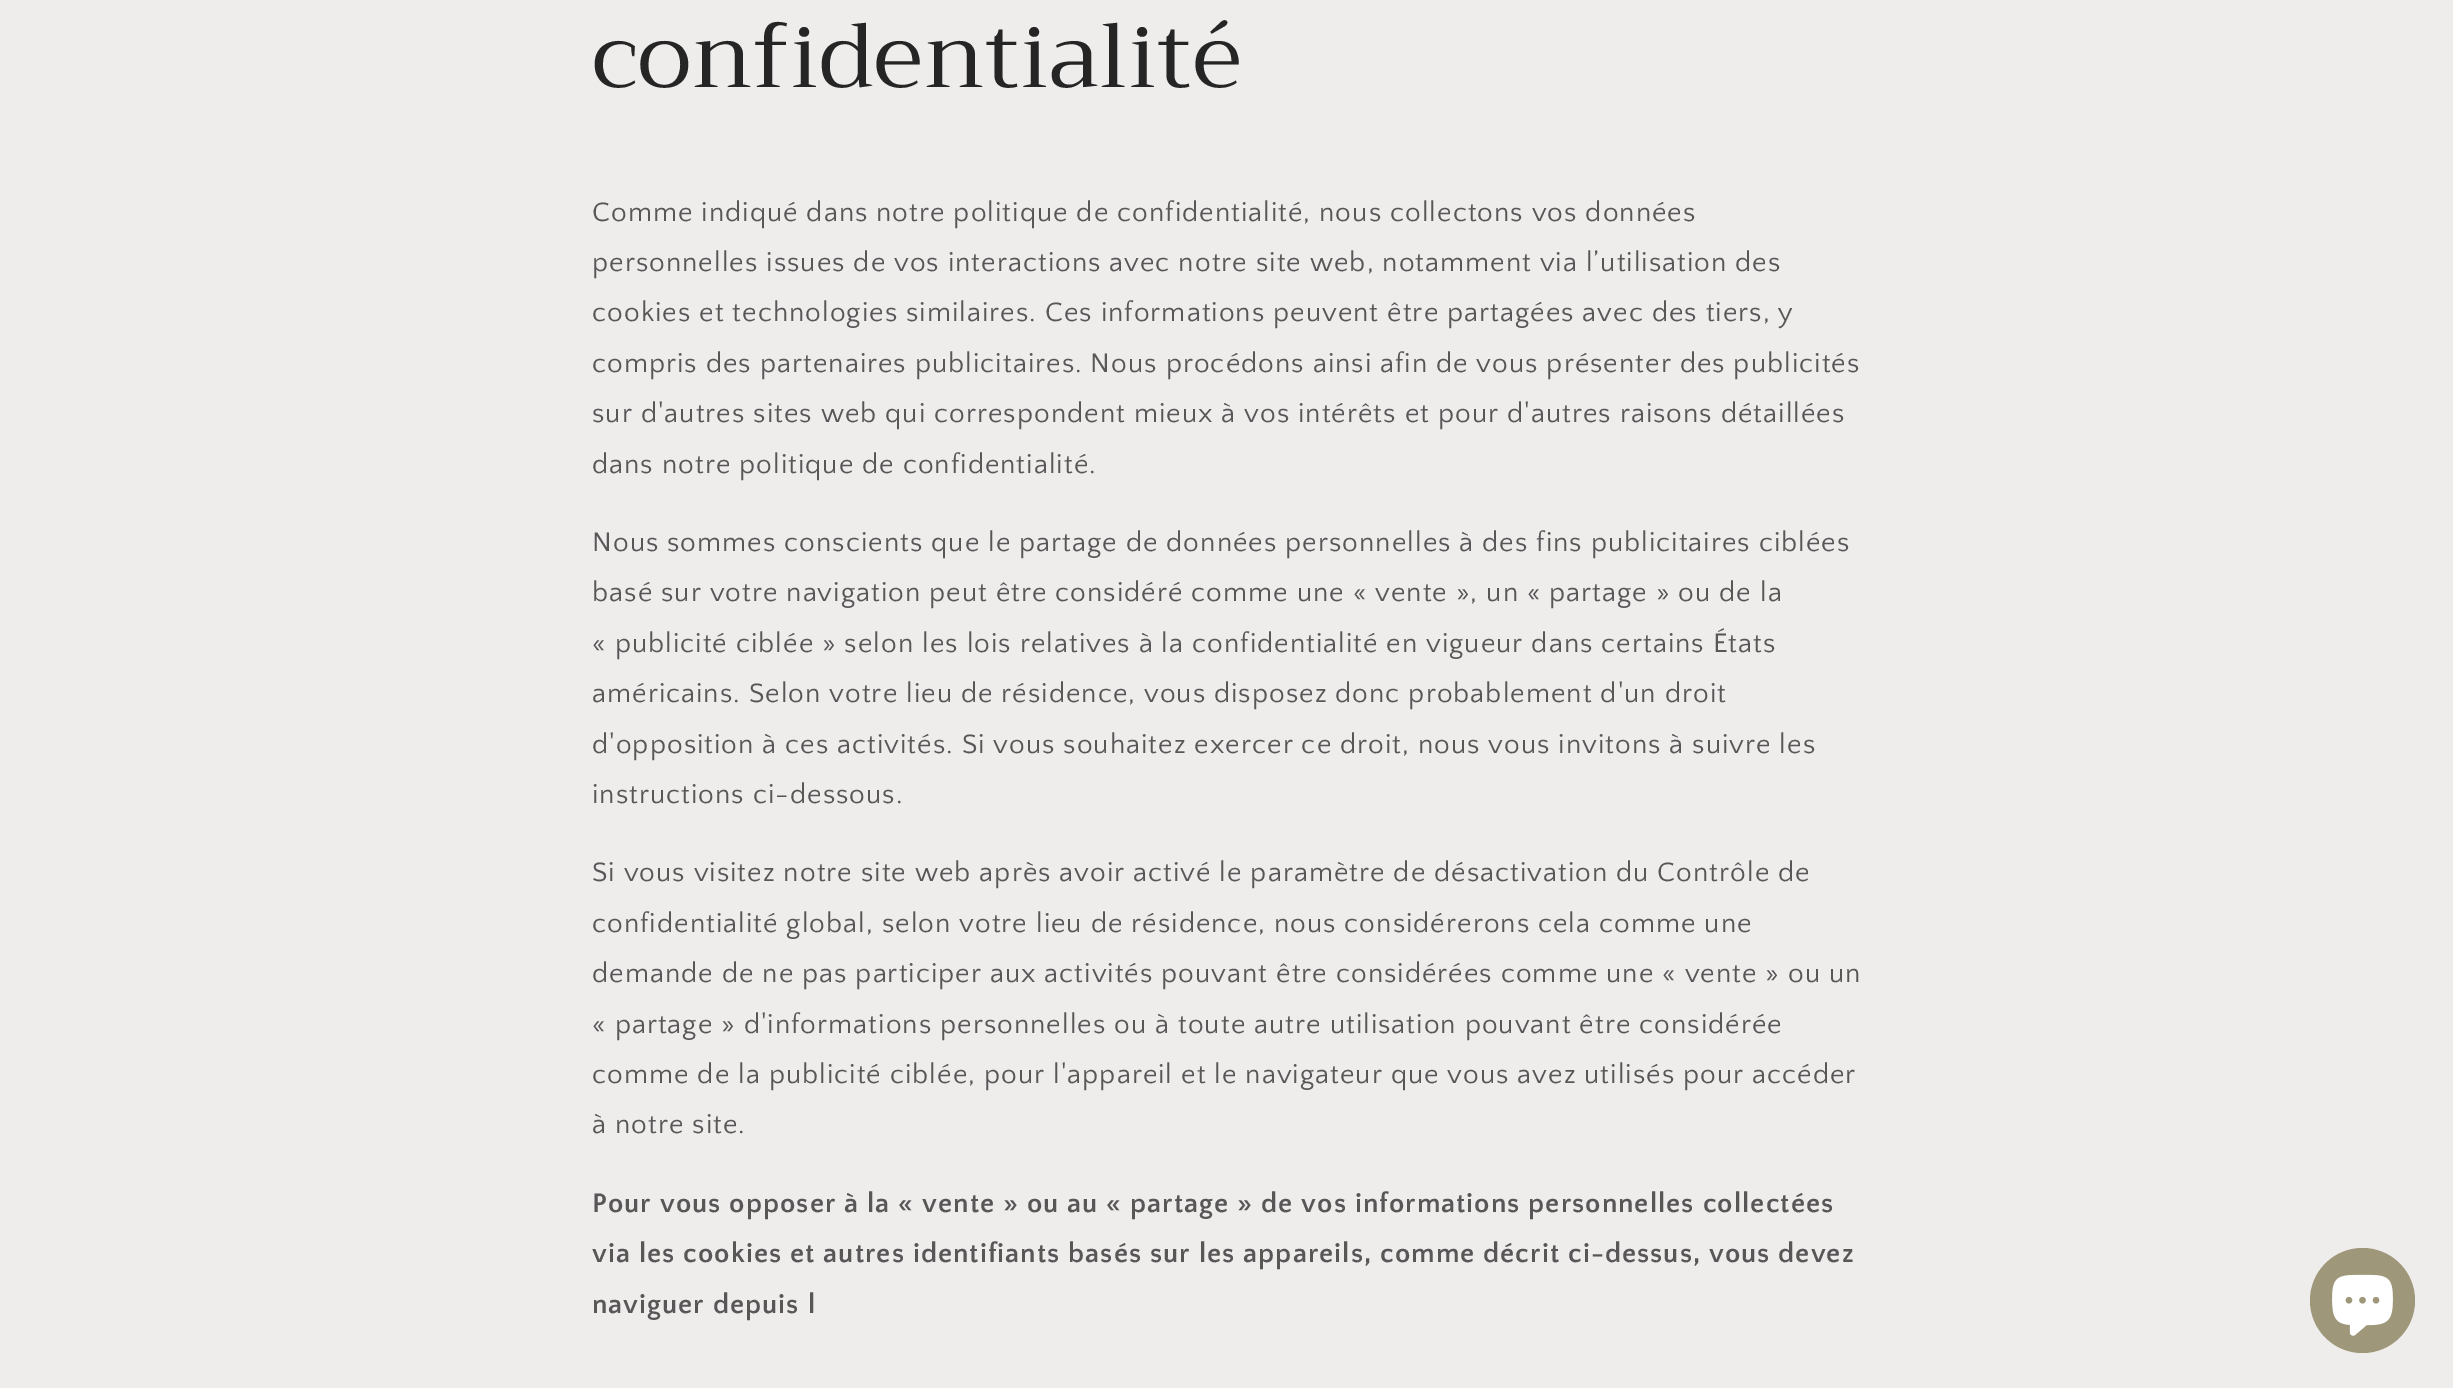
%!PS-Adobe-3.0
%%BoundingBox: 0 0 2453 1388
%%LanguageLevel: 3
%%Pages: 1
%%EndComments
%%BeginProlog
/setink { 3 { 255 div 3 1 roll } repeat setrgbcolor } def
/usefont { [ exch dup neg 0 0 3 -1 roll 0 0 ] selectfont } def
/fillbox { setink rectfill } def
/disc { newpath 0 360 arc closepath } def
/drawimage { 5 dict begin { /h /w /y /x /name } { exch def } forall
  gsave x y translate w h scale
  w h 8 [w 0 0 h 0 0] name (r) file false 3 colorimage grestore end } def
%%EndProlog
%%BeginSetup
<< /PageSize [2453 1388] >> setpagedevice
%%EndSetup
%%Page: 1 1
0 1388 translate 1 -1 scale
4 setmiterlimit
0 0 2453 1388 239 236 236 fillbox
/Trirong-Regular 91 usefont
37 37 37 setink
592 87 moveto 1.05 0 (confidentialité) ashow
/QuattrocentoSans-Regular 28 usefont
88 87 87 setink
592 221 moveto 1.05 0 (Comme indiqué dans notre politique de confidentialité, nous collectons vos données) ashow
592 271 moveto 1.05 0 (personnelles issues de vos interactions avec notre site web, notamment via l’utilisation des) ashow
592 321 moveto 1.05 0 (cookies et technologies similaires. Ces informations peuvent être partagées avec des tiers, y) ashow
592 372 moveto 1.05 0 (compris des partenaires publicitaires. Nous procédons ainsi afin de vous présenter des publicités) ashow
592 422 moveto 1.05 0 (sur d'autres sites web qui correspondent mieux à vos intérêts et pour d'autres raisons détaillées) ashow
592 473 moveto 1.05 0 (dans notre politique de confidentialité.) ashow
592 551 moveto 1.05 0 (Nous sommes conscients que le partage de données personnelles à des fins publicitaires ciblées) ashow
592 601 moveto 1.05 0 (basé sur votre navigation peut être considéré comme une « vente », un « partage » ou de la) ashow
592 652 moveto 1.05 0 (« publicité ciblée » selon les lois relatives à la confidentialité en vigueur dans certains États) ashow
592 702 moveto 1.05 0 (américains. Selon votre lieu de résidence, vous disposez donc probablement d'un droit) ashow
592 753 moveto 1.05 0 (d'opposition à ces activités. Si vous souhaitez exercer ce droit, nous vous invitons à suivre les) ashow
592 803 moveto 1.05 0 (instructions ci-dessous.) ashow
592 881 moveto 1.05 0 (Si vous visitez notre site web après avoir activé le paramètre de désactivation du Contrôle de) ashow
592 932 moveto 1.05 0 (confidentialité global, selon votre lieu de résidence, nous considérerons cela comme une) ashow
592 982 moveto 1.05 0 (demande de ne pas participer aux activités pouvant être considérées comme une « vente » ou un) ashow
592 1033 moveto 1.05 0 (« partage » d'informations personnelles ou à toute autre utilisation pouvant être considérée) ashow
592 1083 moveto 1.05 0 (comme de la publicité ciblée, pour l'appareil et le navigateur que vous avez utilisés pour accéder) ashow
592 1133 moveto 1.05 0 (à notre site.) ashow
/QuattrocentoSans-Bold 28 usefont
592 1212 moveto 1.05 0 (Pour vous opposer à la « vente » ou au « partage » de vos informations personnelles collectées) ashow
592 1262 moveto 1.05 0 (via les cookies et autres identifiants basés sur les appareils, comme décrit ci-dessus, vous devez) ashow
592 1313 moveto 1.05 0 (naviguer depuis l) ashow
158 151 121 setink
2362.5 1300.5 52.5 disc fill
(assets/img1.rgb) 2332 1274 61 62 drawimage
showpage
%%EOF
